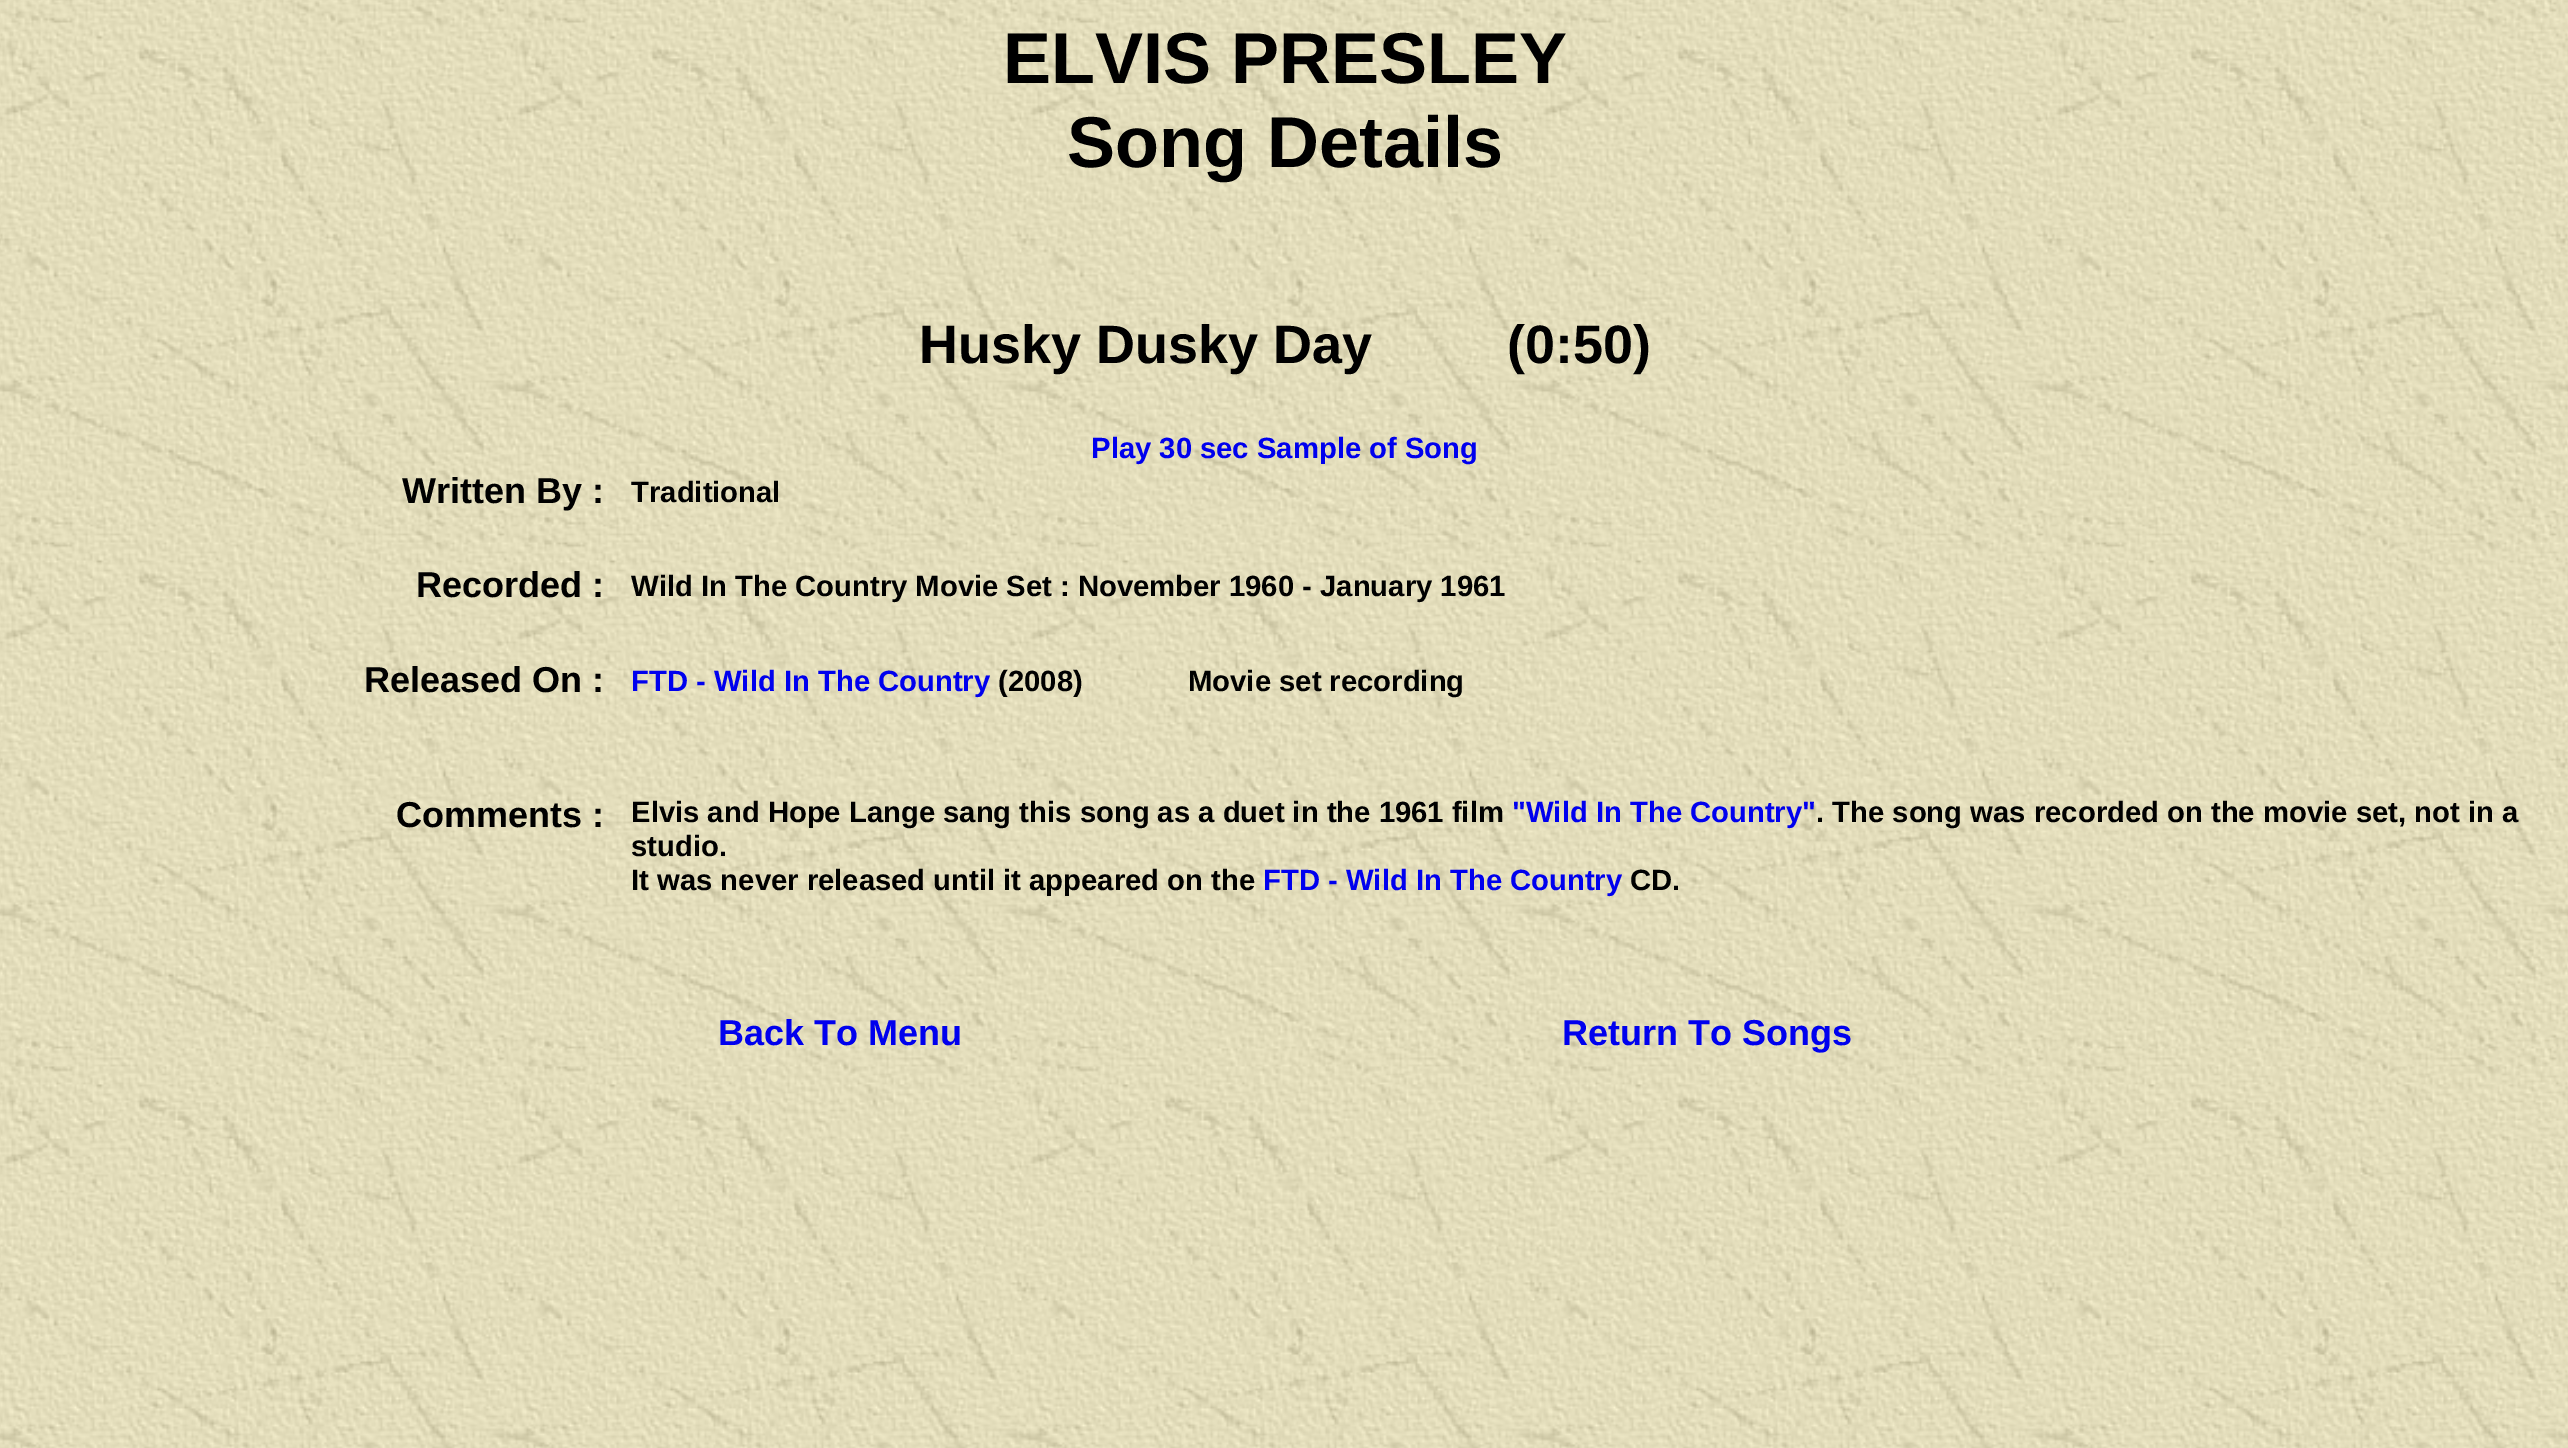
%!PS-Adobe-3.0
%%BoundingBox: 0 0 2568 1448
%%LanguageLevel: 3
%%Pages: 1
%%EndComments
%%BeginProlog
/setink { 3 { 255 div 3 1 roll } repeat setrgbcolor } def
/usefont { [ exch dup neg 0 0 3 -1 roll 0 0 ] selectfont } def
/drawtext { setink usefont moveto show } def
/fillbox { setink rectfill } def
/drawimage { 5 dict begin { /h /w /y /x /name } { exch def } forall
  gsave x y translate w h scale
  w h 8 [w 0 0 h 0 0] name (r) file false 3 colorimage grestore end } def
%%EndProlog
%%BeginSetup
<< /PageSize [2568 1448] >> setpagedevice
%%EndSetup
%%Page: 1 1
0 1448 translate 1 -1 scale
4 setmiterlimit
0 0 2568 1448 255 255 255 fillbox
(assets/img1.rgb) 0 0 2568 1448 drawimage
(ELVIS PRESLEY) 1003 83 /LiberationSans-Bold 72 0 0 0 drawtext
(Song Details) 1067 167 /LiberationSans-Bold 72 0 0 0 drawtext
(Husky Dusky Day         \(0:50\)) 919 363 /LiberationSans-Bold 54 0 0 0 drawtext
(Play 30 sec Sample of Song) 1091 458 /LiberationSans-Bold 29.25 0 0 238 drawtext
(Written By :) 402 503 /LiberationSans-Bold 36 0 0 0 drawtext
(Traditional) 631 502 /LiberationSans-Bold 29.25 0 0 0 drawtext
(Recorded :) 416 597 /LiberationSans-Bold 36 0 0 0 drawtext
(Wild In The Country Movie Set : November 1960 - January 1961) 631 596 /LiberationSans-Bold 29.25 0 0 0 drawtext
(Released On :) 364 692 /LiberationSans-Bold 36 0 0 0 drawtext
(FTD - Wild In The Country) 631 691 /LiberationSans-Bold 29.25 0 0 238 drawtext
(\(2008\)) 998 691 /LiberationSans-Bold 29.25 0 0 0 drawtext
(Movie set recording) 1188 691 /LiberationSans-Bold 29.25 0 0 0 drawtext
(Comments :) 396 827 /LiberationSans-Bold 36 0 0 0 drawtext
(Elvis and Hope Lange sang this song as a duet in the 1961 film) 631 822 /LiberationSans-Bold 29.25 0 0 0 drawtext
("Wild In The Country") 1512 822 /LiberationSans-Bold 29.25 0 0 238 drawtext
(. The song was recorded on the movie set, not in a) 1816 822 /LiberationSans-Bold 29.25 0 0 0 drawtext
(studio.) 631 856 /LiberationSans-Bold 29.25 0 0 0 drawtext
(It was never released until it appeared on the) 631 890 /LiberationSans-Bold 29.25 0 0 0 drawtext
(FTD - Wild In The Country) 1263 890 /LiberationSans-Bold 29.25 0 0 238 drawtext
(CD.) 1630 890 /LiberationSans-Bold 29.25 0 0 0 drawtext
(Back To Menu) 718 1045 /LiberationSans-Bold 36 0 0 238 drawtext
(Return To Songs) 1562 1045 /LiberationSans-Bold 36 0 0 238 drawtext
showpage
%%EOF
